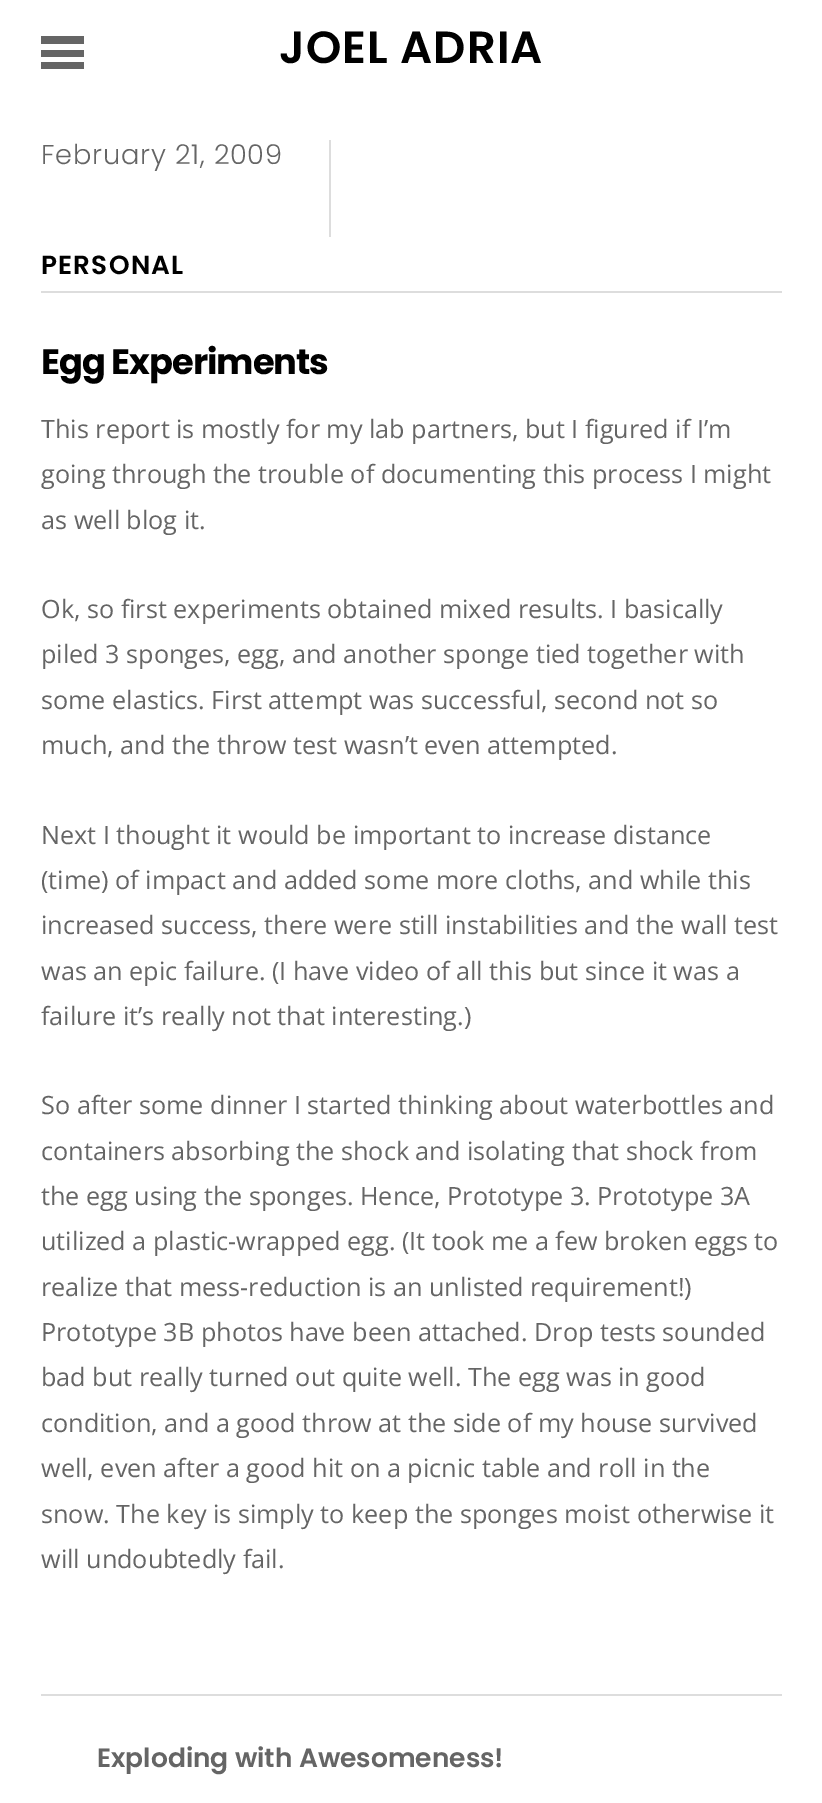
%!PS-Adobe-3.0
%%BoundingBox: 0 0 822 1803
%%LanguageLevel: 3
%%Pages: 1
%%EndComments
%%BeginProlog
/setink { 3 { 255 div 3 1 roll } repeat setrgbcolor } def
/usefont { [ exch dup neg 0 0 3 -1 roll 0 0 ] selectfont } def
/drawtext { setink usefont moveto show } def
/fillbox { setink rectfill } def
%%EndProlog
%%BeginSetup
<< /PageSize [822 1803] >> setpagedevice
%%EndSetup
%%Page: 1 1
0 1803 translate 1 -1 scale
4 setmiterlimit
0 0 822 1803 255 255 255 fillbox
41 62 43 7 101 101 101 fillbox
41 36 43 8 101 101 101 fillbox
41 50 43 7 101 101 101 fillbox
/Poppins-SemiBold 45 usefont
0 0 0 setink
279 63 moveto 1 0 (JOEL ADRIA) ashow
41 291 741 2 221 221 221 fillbox
329 140 2 97 221 221 221 fillbox
/Poppins-Light 27.25 usefont
101 101 101 setink
41 164 moveto 0.8 0 (February 21, 2009) ashow
/Poppins-SemiBold 26.25 usefont
0 0 0 setink
41 274 moveto 1.25 0 (PERSONAL) ashow
/Poppins-Bold 35.25 usefont
41 374 moveto -1 0 (Egg Experiments) ashow
(This report is mostly for my lab partners, but I figured if I’m) 41 438 /OpenSans-Regular 25.2 101 101 101 drawtext
(going through the trouble of documenting this process I might) 41 483 /OpenSans-Regular 25.2 101 101 101 drawtext
(as well blog it.) 41 529 /OpenSans-Regular 25.2 101 101 101 drawtext
(Ok, so first experiments obtained mixed results. I basically) 41 618 /OpenSans-Regular 25.2 101 101 101 drawtext
(piled 3 sponges, egg, and another sponge tied together with) 41 663 /OpenSans-Regular 25.2 101 101 101 drawtext
(some elastics. First attempt was successful, second not so) 41 709 /OpenSans-Regular 25.2 101 101 101 drawtext
(much, and the throw test wasn’t even attempted.) 41 754 /OpenSans-Regular 25.2 101 101 101 drawtext
(Next I thought it would be important to increase distance) 41 844 /OpenSans-Regular 25.2 101 101 101 drawtext
(\(time\) of impact and added some more cloths, and while this) 41 889 /OpenSans-Regular 25.2 101 101 101 drawtext
(increased success, there were still instabilities and the wall test) 41 934 /OpenSans-Regular 25.2 101 101 101 drawtext
(was an epic failure. \(I have video of all this but since it was a) 41 980 /OpenSans-Regular 25.2 101 101 101 drawtext
(failure it’s really not that interesting.\)) 41 1025 /OpenSans-Regular 25.2 101 101 101 drawtext
(So after some dinner I started thinking about waterbottles and) 41 1114 /OpenSans-Regular 25.2 101 101 101 drawtext
(containers absorbing the shock and isolating that shock from) 41 1160 /OpenSans-Regular 25.2 101 101 101 drawtext
(the egg using the sponges. Hence, Prototype 3. Prototype 3A) 41 1205 /OpenSans-Regular 25.2 101 101 101 drawtext
(utilized a plastic-wrapped egg. \(It took me a few broken eggs to) 41 1250 /OpenSans-Regular 25.2 101 101 101 drawtext
(realize that mess-reduction is an unlisted requirement!\)) 41 1296 /OpenSans-Regular 25.2 101 101 101 drawtext
(Prototype 3B photos have been attached. Drop tests sounded) 41 1341 /OpenSans-Regular 25.2 101 101 101 drawtext
(bad but really turned out quite well. The egg was in good) 41 1386 /OpenSans-Regular 25.2 101 101 101 drawtext
(condition, and a good throw at the side of my house survived) 41 1432 /OpenSans-Regular 25.2 101 101 101 drawtext
(well, even after a good hit on a picnic table and roll in the) 41 1477 /OpenSans-Regular 25.2 101 101 101 drawtext
(snow. The key is simply to keep the sponges moist otherwise it) 41 1523 /OpenSans-Regular 25.2 101 101 101 drawtext
(will undoubtedly fail.) 41 1568 /OpenSans-Regular 25.2 101 101 101 drawtext
41 1694 741 2 221 221 221 fillbox
(Exploding with Awesomeness!) 97 1767 /Poppins-SemiBold 26.5 101 101 101 drawtext
showpage
%%EOF
